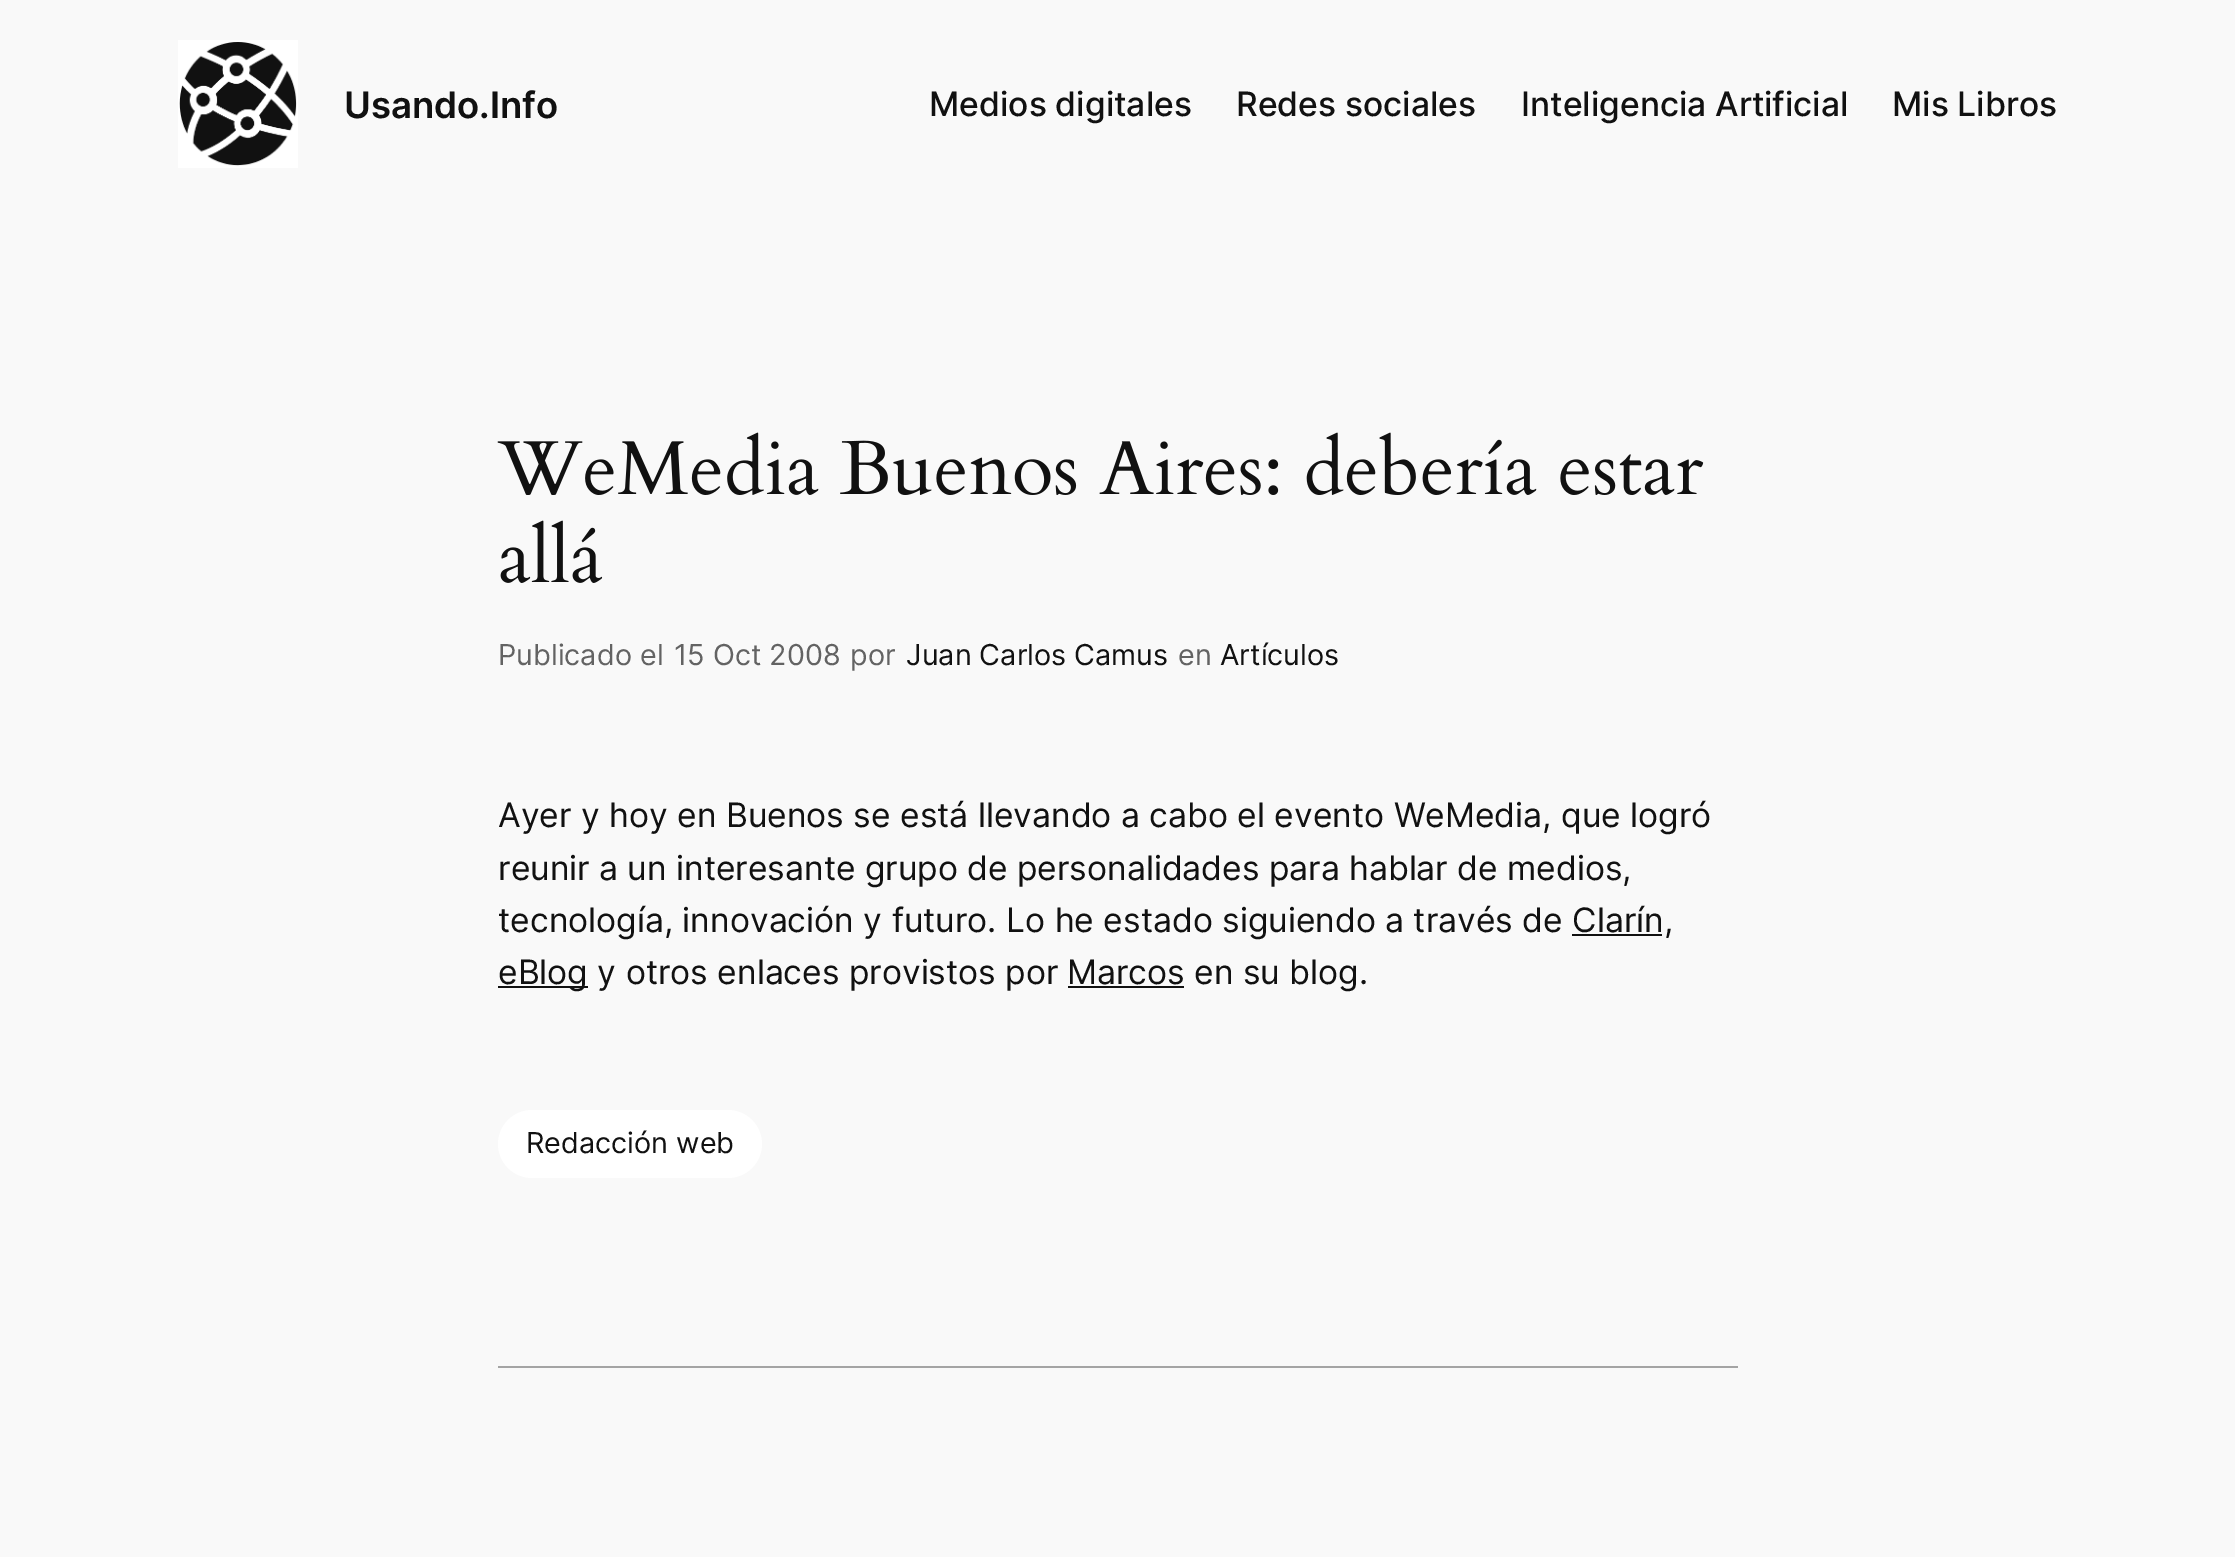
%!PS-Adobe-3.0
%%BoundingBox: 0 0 2235 1557
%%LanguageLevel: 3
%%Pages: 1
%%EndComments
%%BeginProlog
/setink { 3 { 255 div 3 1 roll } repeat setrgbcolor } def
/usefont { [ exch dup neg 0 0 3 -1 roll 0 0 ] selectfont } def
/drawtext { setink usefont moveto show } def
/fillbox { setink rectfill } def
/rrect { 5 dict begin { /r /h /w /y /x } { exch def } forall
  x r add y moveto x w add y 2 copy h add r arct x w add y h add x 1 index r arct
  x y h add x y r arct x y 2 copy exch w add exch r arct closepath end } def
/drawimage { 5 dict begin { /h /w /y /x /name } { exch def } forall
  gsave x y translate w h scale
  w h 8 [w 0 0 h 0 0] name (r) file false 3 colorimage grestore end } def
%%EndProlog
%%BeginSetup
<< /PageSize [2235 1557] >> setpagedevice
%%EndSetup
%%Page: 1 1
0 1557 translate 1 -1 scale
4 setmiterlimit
0 0 2235 1557 249 249 249 fillbox
(assets/img1.rgb) 178 40 120 128 drawimage
(Usando.Info) 344 118 /Inter-SemiBold 36.5 17 17 17 drawtext
(Medios digitales) 929 116 /Inter-Medium 33.6 17 17 17 drawtext
(Redes sociales) 1236 116 /Inter-Medium 33.6 17 17 17 drawtext
(Inteligencia Artificial) 1521 116 /Inter-Medium 33.6 17 17 17 drawtext
(Mis Libros) 1892 116 /Inter-Medium 33.6 17 17 17 drawtext
(assets/img2.rgb) 497 432 1207 63 drawimage
(assets/img3.rgb) 500 520 103 63 drawimage
(Publicado el) 498 665 /Inter-Regular 28.75 99 99 99 drawtext
(15 Oct 2008) 674 665 /Inter-Regular 28.75 99 99 99 drawtext
(por) 850 665 /Inter-Regular 28.75 99 99 99 drawtext
(Juan Carlos Camus) 906 665 /Inter-Regular 28.75 17 17 17 drawtext
(en) 1178 665 /Inter-Regular 28.75 99 99 99 drawtext
(Artículos) 1220 665 /Inter-Regular 28.75 17 17 17 drawtext
(Ayer y hoy en Buenos se está llevando a cabo el evento WeMedia, que logró) 498 827 /Inter-Regular 33.6 17 17 17 drawtext
498 880 moveto -0.1 0 32 (reunir a un interesante grupo de personalidades para hablar de medios,) widthshow
(tecnología, innovación y futuro. Lo he estado siguiendo a través de Clarín,) 498 932 /Inter-Regular 33.6 17 17 17 drawtext
1572 934 90 2 17 17 17 fillbox
498 986 90 2 17 17 17 fillbox
(eBlog y otros enlaces provistos por) 498 984 /Inter-Regular 33.6 17 17 17 drawtext
1068 986 116 2 17 17 17 fillbox
(Marcos en su blog.) 1067 984 /Inter-Regular 33.6 17 17 17 drawtext
255 255 255 setink
498 1110 264 68 34 rrect fill
(Redacción web) 526 1153 /Inter-Regular 28.75 17 17 17 drawtext
498 1366 1240 2 164 164 164 fillbox
showpage
%%EOF
